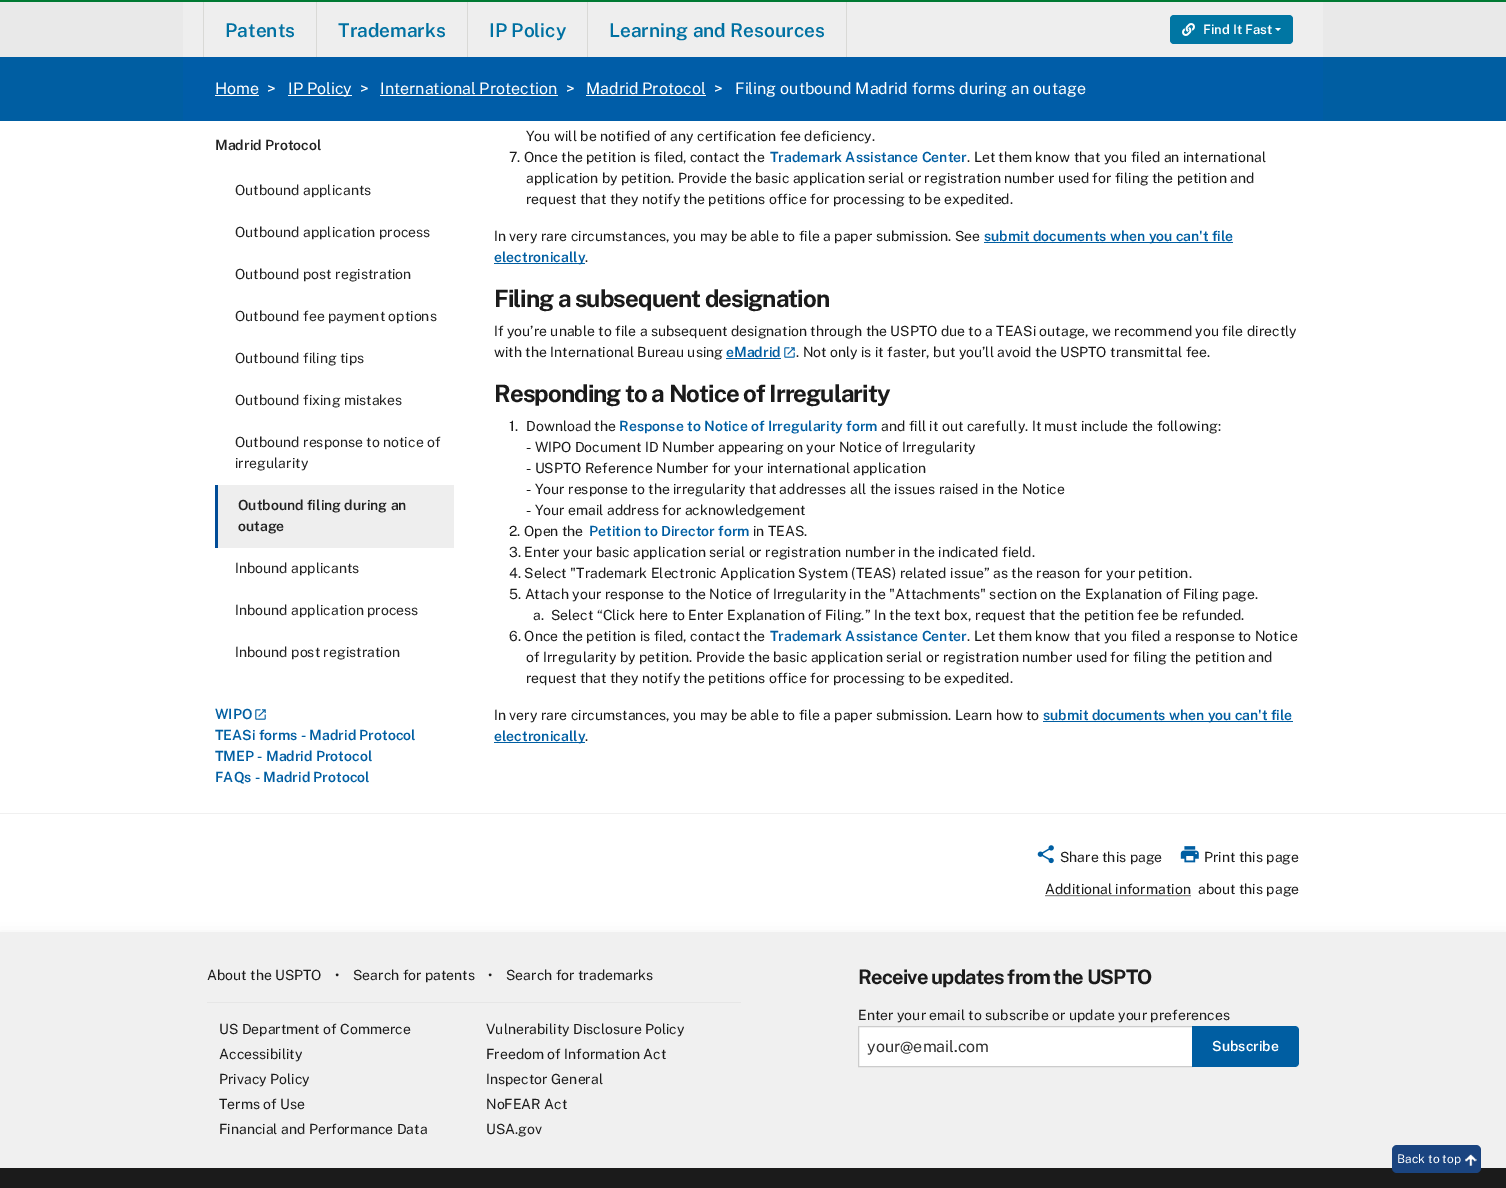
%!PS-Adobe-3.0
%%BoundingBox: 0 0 1506 1188
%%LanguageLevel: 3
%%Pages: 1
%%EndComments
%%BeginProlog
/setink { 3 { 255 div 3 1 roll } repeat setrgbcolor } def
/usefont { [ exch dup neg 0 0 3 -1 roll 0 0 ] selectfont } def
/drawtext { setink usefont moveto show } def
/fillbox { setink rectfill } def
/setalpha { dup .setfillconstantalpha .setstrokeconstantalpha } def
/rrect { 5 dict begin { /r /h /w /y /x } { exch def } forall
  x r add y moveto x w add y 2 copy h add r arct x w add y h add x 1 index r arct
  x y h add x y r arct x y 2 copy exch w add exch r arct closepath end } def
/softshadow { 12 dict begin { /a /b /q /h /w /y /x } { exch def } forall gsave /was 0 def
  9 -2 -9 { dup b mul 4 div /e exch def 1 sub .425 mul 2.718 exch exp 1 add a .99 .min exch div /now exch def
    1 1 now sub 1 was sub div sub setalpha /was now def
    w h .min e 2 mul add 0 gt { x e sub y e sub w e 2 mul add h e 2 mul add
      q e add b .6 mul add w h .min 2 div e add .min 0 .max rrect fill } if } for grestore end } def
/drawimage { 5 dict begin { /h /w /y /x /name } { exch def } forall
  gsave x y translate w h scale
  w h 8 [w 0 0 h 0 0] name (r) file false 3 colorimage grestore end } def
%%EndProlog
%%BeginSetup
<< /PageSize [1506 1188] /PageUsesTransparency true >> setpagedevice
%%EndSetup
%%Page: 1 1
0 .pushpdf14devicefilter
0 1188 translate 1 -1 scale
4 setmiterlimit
0 0 1506 1188 255 255 255 fillbox
0.5 setalpha
0 2 1506 55 211 211 211 fillbox
1 setalpha
0 0 1506 2 0 122 51 fillbox
183 2 1140 55 238 238 238 fillbox
316 2 1 55 217 217 214 fillbox
203 2 1 55 217 217 214 fillbox
(Patents) 225 37 /PublicSans-SemiBold 19 0 113 162 drawtext
467 2 1 55 217 217 214 fillbox
(Trademarks) 338 37 /PublicSans-SemiBold 19 0 113 162 drawtext
587 2 1 55 217 217 214 fillbox
(IP Policy) 489 37 /PublicSans-SemiBold 19 0 113 162 drawtext
846 2 1 55 217 217 214 fillbox
(Learning and Resources) 609 37 /PublicSans-SemiBold 19 0 113 162 drawtext
0 118 163 setink
1170 15 123 29 4 rrect fill
(assets/img1.rgb) 1182 23 13 13 drawimage
(Find It Fast) 1203 34 /PublicSans-SemiBold 13 255 255 255 drawtext
1275 28 moveto 1281 28 lineto 1278 31 lineto closepath fill
0 57 1506 64 0 94 162 fillbox
183 57 1140 64 0 93 168 fillbox
(Home) 215 94 /PublicSans-Regular 16 255 255 255 drawtext
215 95 44 1 255 255 255 fillbox
(>) 267 94 /PublicSans-Regular 16 255 255 255 drawtext
288 95 64 1 255 255 255 fillbox
(IP Policy) 288 94 /PublicSans-Regular 16 255 255 255 drawtext
(>) 360 94 /PublicSans-Regular 16 255 255 255 drawtext
(International Protection) 380 94 /PublicSans-Regular 16 255 255 255 drawtext
380 95 178 1 255 255 255 fillbox
(>) 566 94 /PublicSans-Regular 16 255 255 255 drawtext
(Madrid Protocol) 586 94 /PublicSans-Regular 16 255 255 255 drawtext
586 95 120 1 255 255 255 fillbox
(>) 714 94 /PublicSans-Regular 16 255 255 255 drawtext
(Filing outbound Madrid forms during an outage) 735 94 /PublicSans-Regular 16 255 255 255 drawtext
(Madrid Protocol) 215 150 /PublicSans-SemiBold 14 34 34 34 drawtext
(Outbound applicants) 235 195 /PublicSans-Regular 14 34 34 34 drawtext
(Outbound application process) 235 237 /PublicSans-Regular 14 34 34 34 drawtext
(Outbound post registration) 235 279 /PublicSans-Regular 14 34 34 34 drawtext
(Outbound fee payment options) 235 321 /PublicSans-Regular 14 34 34 34 drawtext
(Outbound filing tips) 235 363 /PublicSans-Regular 14 34 34 34 drawtext
(Outbound fixing mistakes) 235 405 /PublicSans-Regular 14 34 34 34 drawtext
(Outbound response to notice of) 235 447 /PublicSans-Regular 14 34 34 34 drawtext
(irregularity) 235 468 /PublicSans-Regular 14 34 34 34 drawtext
218 485 236 63 238 238 238 fillbox
215 485 3 63 0 76 151 fillbox
(Outbound filing during an) 238 510 /PublicSans-SemiBold 14 34 34 34 drawtext
(outage) 238 531 /PublicSans-SemiBold 14 34 34 34 drawtext
(Inbound applicants) 235 573 /PublicSans-Regular 14 34 34 34 drawtext
(Inbound application process) 235 615 /PublicSans-Regular 14 34 34 34 drawtext
(Inbound post registration) 235 657 /PublicSans-Regular 14 34 34 34 drawtext
(WIPO) 215 719 /PublicSans-SemiBold 14 0 94 162 drawtext
(assets/img2.rgb) 255 709 11 11 drawimage
(TEASi forms - Madrid Protocol) 215 740 /PublicSans-SemiBold 14 0 94 162 drawtext
(TMEP - Madrid Protocol) 215 761 /PublicSans-SemiBold 14 0 94 162 drawtext
(FAQs - Madrid Protocol) 215 782 /PublicSans-SemiBold 14 0 94 162 drawtext
(You will be notified of any certification fee deficiency.) 526 141 /PublicSans-Regular 14 27 27 27 drawtext
(7. Once the petition is filed, contact the) 509 162 /PublicSans-Regular 14 27 27 27 drawtext
(Trademark Assistance Center) 770 162 /PublicSans-SemiBold 14 0 94 162 drawtext
(. Let them know that you filed an international) 967 162 /PublicSans-Regular 14 27 27 27 drawtext
(application by petition. Provide the basic application serial or registration number used for filing the petition and) 526 183 /PublicSans-Regular 14 27 27 27 drawtext
(request that they notify the petitions office for processing to be expedited.) 526 204 /PublicSans-Regular 14 27 27 27 drawtext
(In very rare circumstances, you may be able to file a paper submission. See) 494 241 /PublicSans-Regular 14 27 27 27 drawtext
984 242 249 1 0 94 162 fillbox
(submit documents when you can't file) 984 241 /PublicSans-SemiBold 14 0 94 162 drawtext
494 263 91 1 0 94 162 fillbox
(electronically) 494 262 /PublicSans-SemiBold 14 0 94 162 drawtext
(.) 585 262 /PublicSans-Regular 14 27 27 27 drawtext
/PublicSans-Bold 24 usefont
494 307 moveto -0.95 0 (Filing a subsequent designation) ashow
(If you’re unable to file a subsequent designation through the USPTO due to a TEASi outage, we recommend you file directly) 494 336 /PublicSans-Regular 14 27 27 27 drawtext
(with the International Bureau using) 494 357 /PublicSans-Regular 14 27 27 27 drawtext
(eMadrid) 726 357 /PublicSans-SemiBold 14 0 94 162 drawtext
726 358 55 1 0 94 162 fillbox
(assets/img2.rgb) 784 347 11 11 drawimage
(. Not only is it faster, but you’ll avoid the USPTO transmittal fee.) 796 357 /PublicSans-Regular 14 27 27 27 drawtext
/PublicSans-Bold 24 usefont
494 402 moveto -0.95 0 (Responding to a Notice of Irregularity) ashow
(1.) 509 431 /PublicSans-Regular 14 27 27 27 drawtext
(Download the) 526 431 /PublicSans-Regular 14 27 27 27 drawtext
(Response to Notice of Irregularity form) 619 431 /PublicSans-SemiBold 14 0 94 162 drawtext
(and fill it out carefully. It must include the following:) 881 431 /PublicSans-Regular 14 27 27 27 drawtext
(- WIPO Document ID Number appearing on your Notice of Irregularity) 526 452 /PublicSans-Regular 14 27 27 27 drawtext
(- USPTO Reference Number for your international application) 526 473 /PublicSans-Regular 14 27 27 27 drawtext
(- Your response to the irregularity that addresses all the issues raised in the Notice) 526 494 /PublicSans-Regular 14 27 27 27 drawtext
(- Your email address for acknowledgement) 526 515 /PublicSans-Regular 14 27 27 27 drawtext
(2. Open the) 509 536 /PublicSans-Regular 14 27 27 27 drawtext
(Petition to Director form) 589 536 /PublicSans-SemiBold 14 0 94 162 drawtext
(in TEAS.) 753 536 /PublicSans-Regular 14 27 27 27 drawtext
(3. Enter your basic application serial or registration number in the indicated field.) 509 557 /PublicSans-Regular 14 27 27 27 drawtext
(4. Select "Trademark Electronic Application System \(TEAS\) related issue” as the reason for your petition.) 509 578 /PublicSans-Regular 14 27 27 27 drawtext
(5. Attach your response to the Notice of Irregularity in the "Attachments" section on the Explanation of Filing page.) 509 599 /PublicSans-Regular 14 27 27 27 drawtext
(a.  Select “Click here to Enter Explanation of Filing.” In the text box, request that the petition fee be refunded.) 533 620 /PublicSans-Regular 14 27 27 27 drawtext
(6. Once the petition is filed, contact the) 509 641 /PublicSans-Regular 14 27 27 27 drawtext
(Trademark Assistance Center) 770 641 /PublicSans-SemiBold 14 0 94 162 drawtext
(. Let them know that you filed a response to Notice) 967 641 /PublicSans-Regular 14 27 27 27 drawtext
(of Irregularity by petition. Provide the basic application serial or registration number used for filing the petition and) 526 662 /PublicSans-Regular 14 27 27 27 drawtext
(request that they notify the petitions office for processing to be expedited.) 526 683 /PublicSans-Regular 14 27 27 27 drawtext
(In very rare circumstances, you may be able to file a paper submission. Learn how to) 494 720 /PublicSans-Regular 14 27 27 27 drawtext
1043 721 250 1 0 94 162 fillbox
(submit documents when you can't file) 1043 720 /PublicSans-SemiBold 14 0 94 162 drawtext
494 742 91 1 0 94 162 fillbox
(electronically) 494 741 /PublicSans-SemiBold 14 0 94 162 drawtext
(.) 585 741 /PublicSans-Regular 14 27 27 27 drawtext
0 813 1506 1 240 240 240 fillbox
(assets/img3.rgb) 1037 845 17 19 drawimage
(Share this page) 1060 862 /PublicSans-Regular 14 27 27 27 drawtext
(assets/img4.rgb) 1180 846 19 17 drawimage
(Print this page) 1204 862 /PublicSans-Regular 14 27 27 27 drawtext
(Additional information) 1045 894 /PublicSans-Regular 14 27 27 27 drawtext
[1 1] 0 setdash
1045.5 895.5 moveto 1191 895.5 lineto stroke
(about this page) 1198 894 /PublicSans-Regular 14 27 27 27 drawtext
0 0 0 setink
0 940 1506 236 0 8 0.15 softshadow
0 932 1506 236 240 240 240 fillbox
207 1002 534 1 230 230 230 fillbox
(About the USPTO) 207 980 /PublicSans-Regular 14 27 27 27 drawtext
(•) 335 980 /PublicSans-Regular 14 27 27 27 drawtext
(Search for patents) 353 980 /PublicSans-Regular 14 27 27 27 drawtext
(•) 488 980 /PublicSans-Regular 14 27 27 27 drawtext
(Search for trademarks) 506 980 /PublicSans-Regular 14 27 27 27 drawtext
(US Department of Commerce) 219 1034 /PublicSans-Regular 14 27 27 27 drawtext
(Accessibility) 219 1059 /PublicSans-Regular 14 27 27 27 drawtext
(Privacy Policy) 219 1084 /PublicSans-Regular 14 27 27 27 drawtext
(Terms of Use) 219 1109 /PublicSans-Regular 14 27 27 27 drawtext
(Financial and Performance Data) 219 1134 /PublicSans-Regular 14 27 27 27 drawtext
(Vulnerability Disclosure Policy) 486 1034 /PublicSans-Regular 14 27 27 27 drawtext
(Freedom of Information Act) 486 1059 /PublicSans-Regular 14 27 27 27 drawtext
(Inspector General) 486 1084 /PublicSans-Regular 14 27 27 27 drawtext
(NoFEAR Act) 486 1109 /PublicSans-Regular 14 27 27 27 drawtext
(USA.gov) 486 1134 /PublicSans-Regular 14 27 27 27 drawtext
/PublicSans-Bold 20 usefont
858 984 moveto -0.8 0 (Receive updates from the USPTO) ashow
(Enter your email to subscribe or update your preferences) 858 1020 /PublicSans-Regular 14 27 27 27 drawtext
255 255 255 setink
858.5 1026.5 moveto 1192.5 1026.5 lineto 1192.5 1066.5 lineto 858.5 1066.5 lineto closepath gsave fill grestore
204 204 204 setink
[] 0 setdash
stroke
(your@email.com) 867 1052 /PublicSans-Regular 16 51 51 51 drawtext
0 94 162 setink
1192 1026 moveto 1295 1026 lineto 1297 1026 1299 1028 1299 1030 curveto 1299 1063 lineto 1299 1065 1297 1067 1295 1067 curveto 1192 1067 lineto closepath fill
(Subscribe) 1212 1051 /PublicSans-SemiBold 14 255 255 255 drawtext
0 1168 1506 20 27 27 27 fillbox
26 68 128 setink
1392 1145 89 28 5 rrect fill
(assets/img5.rgb) 1465 1154 12 12 drawimage
(Back to top) 1397 1163 /PublicSans-Regular 12 255 255 255 drawtext
.poppdf14devicefilter showpage
%%EOF
